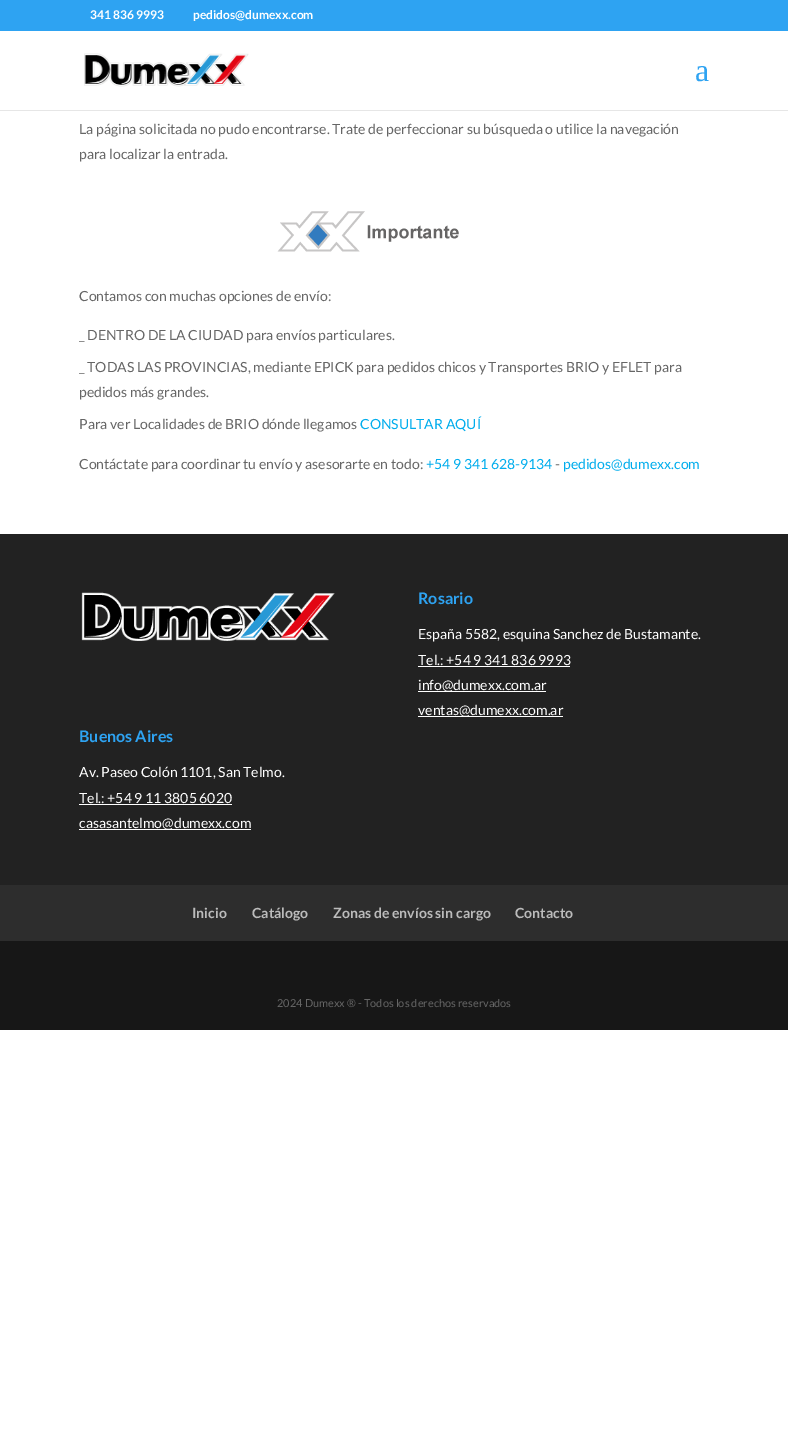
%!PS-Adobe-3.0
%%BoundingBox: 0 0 788 1447
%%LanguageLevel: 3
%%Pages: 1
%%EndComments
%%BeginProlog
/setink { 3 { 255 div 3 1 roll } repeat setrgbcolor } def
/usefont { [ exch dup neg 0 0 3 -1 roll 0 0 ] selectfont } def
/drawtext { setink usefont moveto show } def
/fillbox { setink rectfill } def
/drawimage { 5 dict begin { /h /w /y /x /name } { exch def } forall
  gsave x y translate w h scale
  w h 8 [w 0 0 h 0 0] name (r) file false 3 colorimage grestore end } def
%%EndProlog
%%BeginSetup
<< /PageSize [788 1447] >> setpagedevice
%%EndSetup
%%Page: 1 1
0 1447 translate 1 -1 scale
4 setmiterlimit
0 0 788 1447 255 255 255 fillbox
0 0 788 31 46 163 242 fillbox
(341 836 9993) 90 19 /Lato-Bold 12 255 255 255 drawtext
(pedidos@dumexx.com) 193 19 /Lato-Bold 12 255 255 255 drawtext
0 110 788 1 230 230 230 fillbox
(assets/img1.rgb) 84 53 165 34 drawimage
(a) 695 81 /LiberationSerif-Regular 32 46 163 242 drawtext
(La página solicitada no pudo encontrarse. Trate de perfeccionar su búsqueda o utilice la navegación) 79 134 /Lato-Regular 14 102 102 102 drawtext
(para localizar la entrada.) 79 159 /Lato-Regular 14 102 102 102 drawtext
(assets/img2.rgb) 277 211 182 41 drawimage
(Contamos con muchas opciones de envío:) 79 301 /Lato-Regular 14 102 102 102 drawtext
(_ DENTRO DE LA CIUDAD para envíos particulares.) 79 340 /Lato-Regular 14 102 102 102 drawtext
(_ TODAS LAS PROVINCIAS, mediante EPICK para pedidos chicos y Transportes BRIO y EFLET para) 79 372 /Lato-Regular 14 102 102 102 drawtext
(pedidos más grandes.) 79 397 /Lato-Regular 14 102 102 102 drawtext
(Para ver Localidades de BRIO dónde llegamos) 79 429 /Lato-Regular 14 102 102 102 drawtext
(CONSULTAR AQUÍ) 360 429 /Lato-Regular 14 0 173 237 drawtext
(Contáctate para coordinar tu envío y asesorarte en todo:) 79 469 /Lato-Regular 14 102 102 102 drawtext
(+54 9 341 628-9134) 426 469 /Lato-Regular 14 0 173 237 drawtext
(-) 555 469 /Lato-Regular 14 102 102 102 drawtext
(pedidos@dumexx.com) 563 469 /Lato-Regular 14 0 173 237 drawtext
0 534 788 351 34 34 34 fillbox
(assets/img3.rgb) 81 592 254 49 drawimage
(Rosario) 418 604 /Lato-Bold 16 46 163 242 drawtext
(España 5582, esquina Sanchez de Bustamante.) 418 639 /Lato-Regular 14 255 255 255 drawtext
(Tel.: +54 9 341 836 9993) 418 665 /Lato-Regular 14 255 255 255 drawtext
418 666 152 1 255 255 255 fillbox
418 691 128 1 255 255 255 fillbox
(info@dumexx.com.ar) 418 690 /Lato-Regular 14 255 255 255 drawtext
418 716 145 1 255 255 255 fillbox
(ventas@dumexx.com.ar) 418 715 /Lato-Regular 14 255 255 255 drawtext
(Buenos Aires) 79 742 /Lato-Bold 16 46 163 242 drawtext
(Av. Paseo Colón 1101, San Telmo.) 79 777 /Lato-Regular 14 255 255 255 drawtext
(Tel.: +54 9 11 3805 6020) 79 803 /Lato-Regular 14 255 255 255 drawtext
79 804 153 1 255 255 255 fillbox
79 829 172 1 255 255 255 fillbox
(casasantelmo@dumexx.com) 79 828 /Lato-Regular 14 255 255 255 drawtext
0 885 788 56 45 45 45 fillbox
(Inicio) 192 918 /Lato-Bold 14 187 187 187 drawtext
(Catálogo) 252 918 /Lato-Bold 14 187 187 187 drawtext
(Zonas de envíos sin cargo) 333 918 /Lato-Bold 14 187 187 187 drawtext
(Contacto) 515 918 /Lato-Bold 14 187 187 187 drawtext
0 941 788 89 23 23 23 fillbox
(2024 Dumexx ® - Todos los derechos reservados) 277 1007 /Lato-Regular 11 102 102 102 drawtext
showpage
%%EOF
